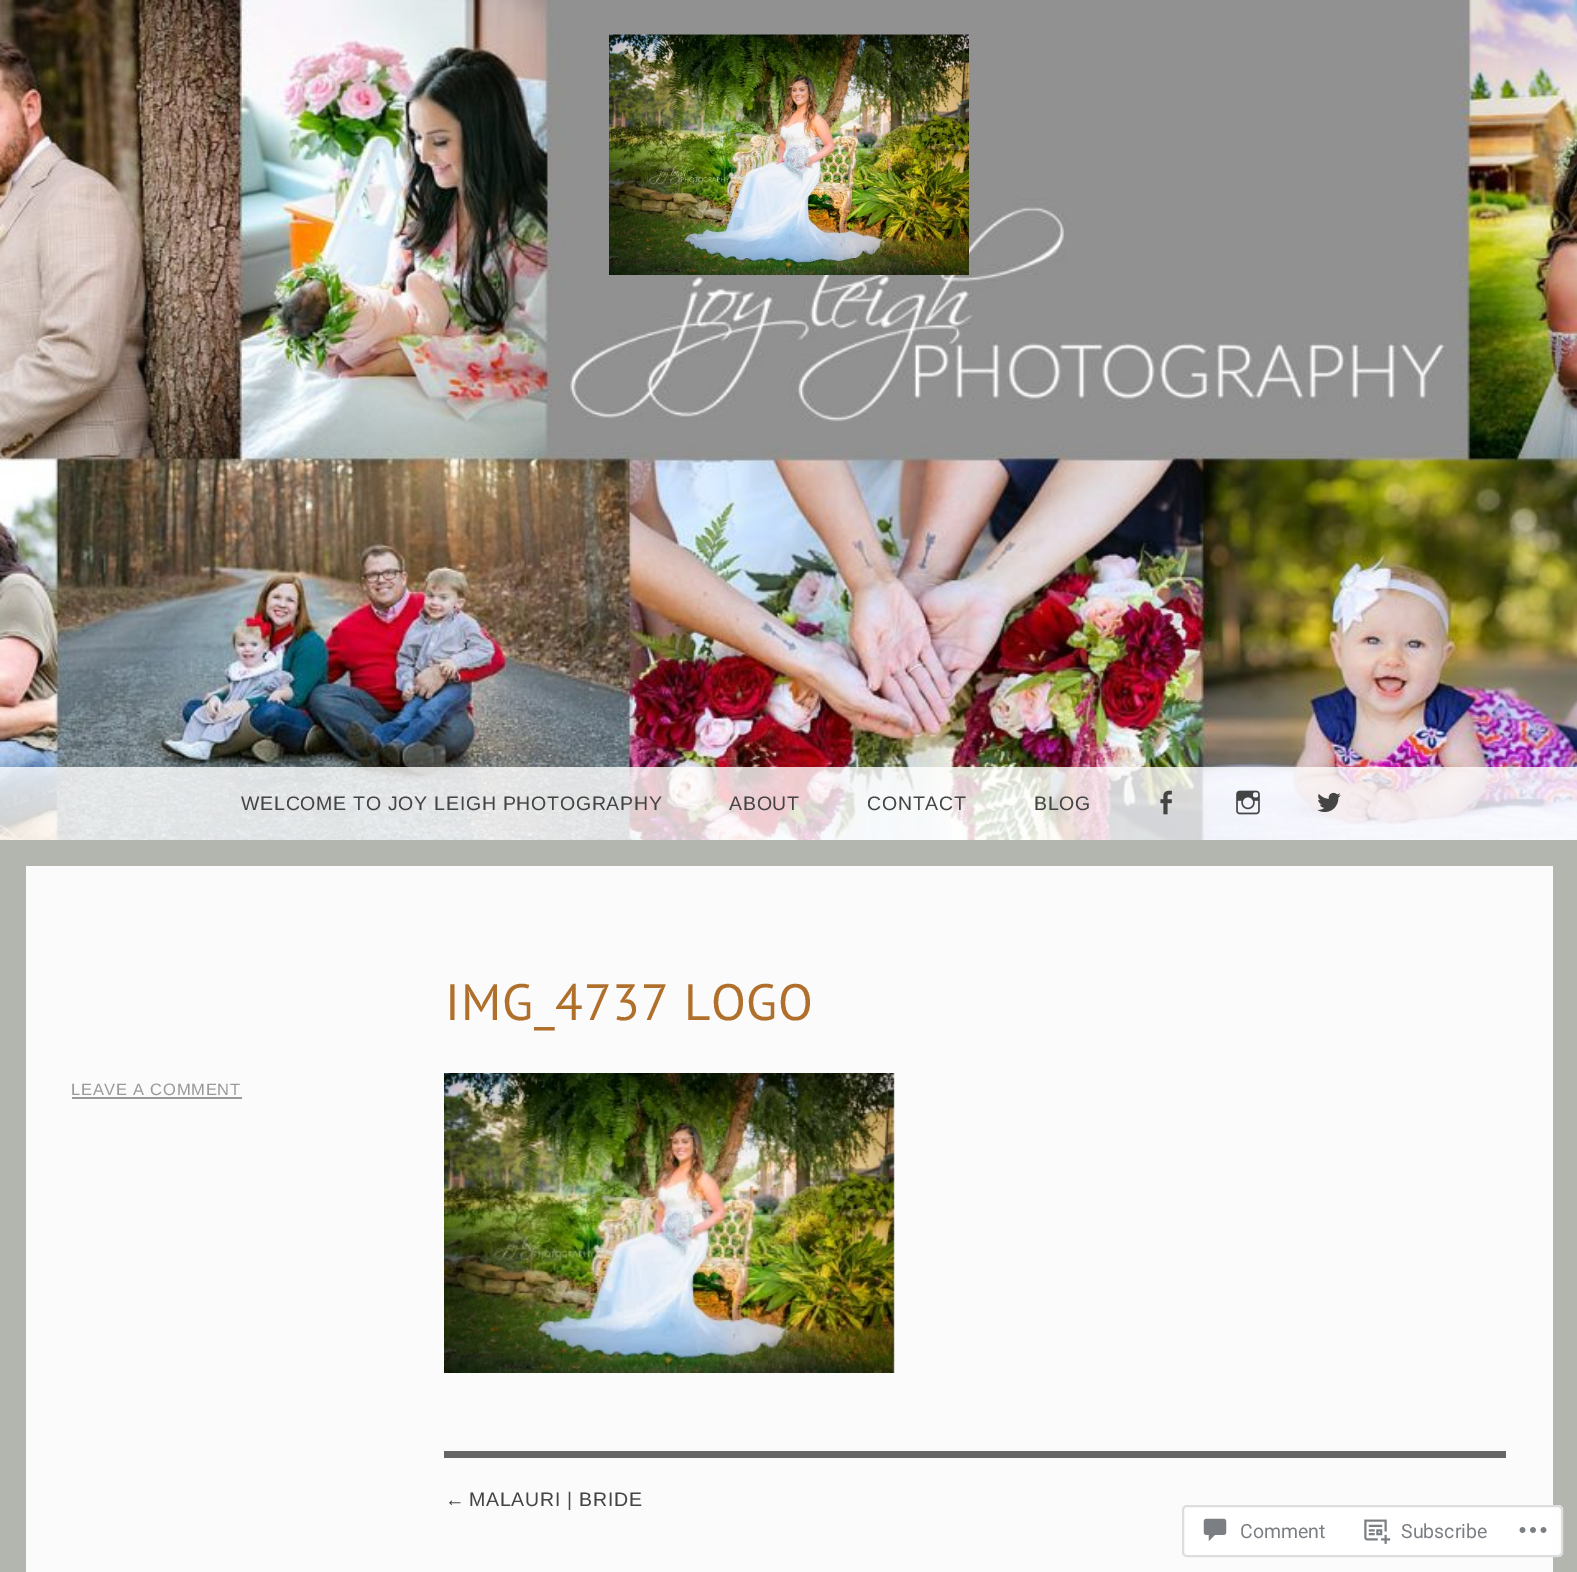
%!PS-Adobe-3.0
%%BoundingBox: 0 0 1577 1572
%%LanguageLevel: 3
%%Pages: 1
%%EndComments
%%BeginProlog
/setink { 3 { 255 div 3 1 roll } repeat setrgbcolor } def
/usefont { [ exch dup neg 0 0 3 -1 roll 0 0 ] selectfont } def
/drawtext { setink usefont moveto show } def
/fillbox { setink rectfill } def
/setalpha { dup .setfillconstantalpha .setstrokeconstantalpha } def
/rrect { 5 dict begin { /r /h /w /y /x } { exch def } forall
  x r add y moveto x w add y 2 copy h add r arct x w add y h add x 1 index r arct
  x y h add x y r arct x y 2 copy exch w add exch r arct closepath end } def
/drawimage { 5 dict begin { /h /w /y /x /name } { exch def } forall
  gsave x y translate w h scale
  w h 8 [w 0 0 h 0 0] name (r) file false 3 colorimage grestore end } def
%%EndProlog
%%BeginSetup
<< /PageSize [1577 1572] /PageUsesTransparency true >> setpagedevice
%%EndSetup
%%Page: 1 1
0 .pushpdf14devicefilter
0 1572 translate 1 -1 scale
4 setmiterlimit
0 0 1577 1572 179 182 175 fillbox
(assets/img1.rgb) 0 0 1577 840 drawimage
(assets/img2.rgb) 609 34 360 241 drawimage
0.8 setalpha
0 767 1577 73 255 255 255 fillbox
/LiberationSans-Regular 19.5 usefont
1 setalpha
68 68 68 setink
241 810 moveto 0.75 0 (WELCOME TO JOY LEIGH PHOTOGRAPHY) ashow
729 810 moveto 0.75 0 (ABOUT) ashow
867 810 moveto 0.75 0 (CONTACT) ashow
1034 810 moveto 0.75 0 (BLOG) ashow
(assets/img3.rgb) 1160 790 12 25 drawimage
(assets/img4.rgb) 1236 790 24 25 drawimage
(assets/img5.rgb) 1317 792 24 21 drawimage
26 866 1527 706 251 251 251 fillbox
/PTSans-Regular 51 usefont
176 111 42 setink
445 1020 moveto 0.75 0 (IMG_4737 LOGO) ashow
/LiberationSans-Regular 16.5 usefont
153 153 153 setink
71 1095 moveto 0.75 0 (LEAVE A COMMENT) ashow
72 1097 170 2 153 153 153 fillbox
(assets/img6.rgb) 444 1073 451 300 drawimage
444 1451 1062 7 102 102 102 fillbox
/LiberationSans-Regular 19.5 usefont
68 68 68 setink
445 1506 moveto 0.75 0 (←) ashow
469 1506 moveto 0.75 0 (MALAURI | BRIDE) ashow
0.98 setalpha
255 255 255 setink
1182 1505 381 52 5 rrect fill
220 220 222 setink
2 setlinewidth
1183 1506 379 50 4 rrect stroke
1 setalpha
(assets/img7.rgb) 1203 1518 24 24 drawimage
(Comment) 1240 1538 /Roboto-Regular 19.5 123 127 132 drawtext
(assets/img8.rgb) 1364 1519 27 25 drawimage
(Subscribe) 1401 1538 /Roboto-Regular 19.5 123 127 132 drawtext
(assets/img9.rgb) 1519 1527 28 6 drawimage
.poppdf14devicefilter showpage
%%EOF
